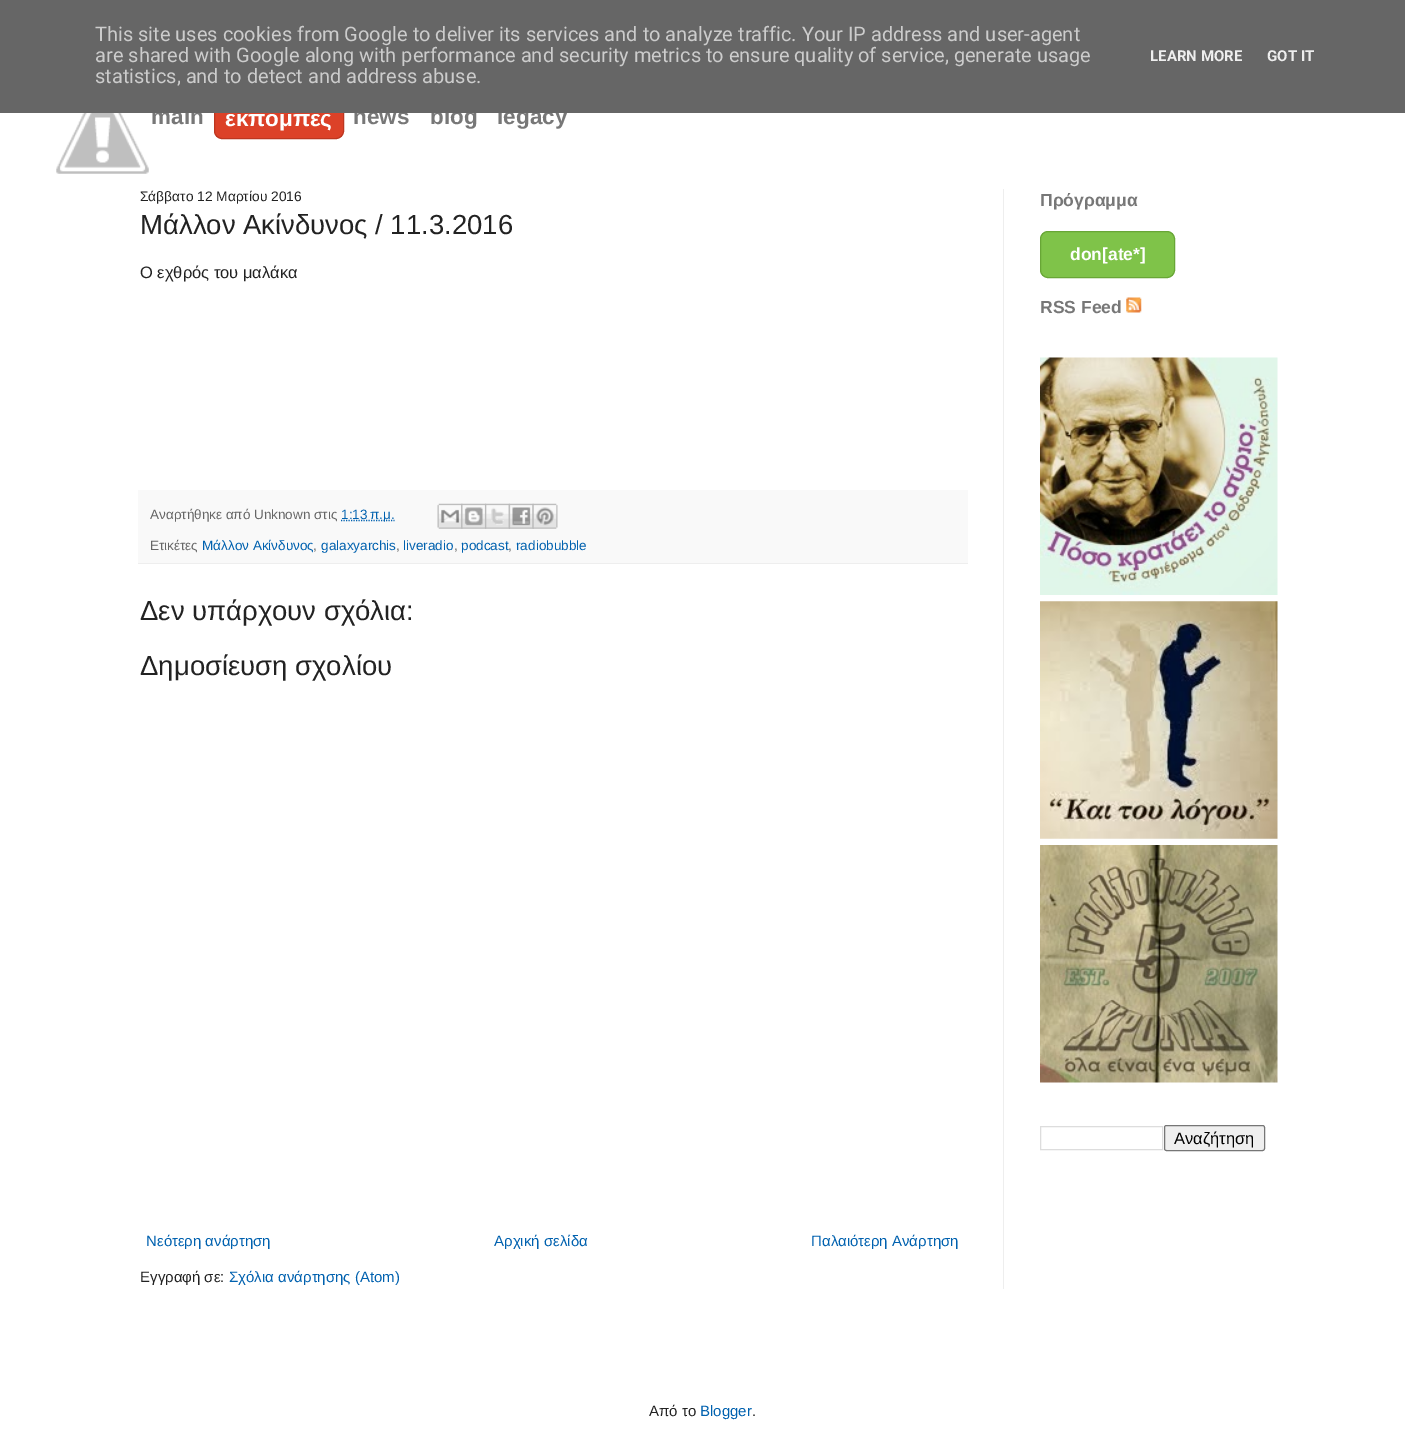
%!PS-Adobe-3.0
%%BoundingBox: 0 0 1405 1446
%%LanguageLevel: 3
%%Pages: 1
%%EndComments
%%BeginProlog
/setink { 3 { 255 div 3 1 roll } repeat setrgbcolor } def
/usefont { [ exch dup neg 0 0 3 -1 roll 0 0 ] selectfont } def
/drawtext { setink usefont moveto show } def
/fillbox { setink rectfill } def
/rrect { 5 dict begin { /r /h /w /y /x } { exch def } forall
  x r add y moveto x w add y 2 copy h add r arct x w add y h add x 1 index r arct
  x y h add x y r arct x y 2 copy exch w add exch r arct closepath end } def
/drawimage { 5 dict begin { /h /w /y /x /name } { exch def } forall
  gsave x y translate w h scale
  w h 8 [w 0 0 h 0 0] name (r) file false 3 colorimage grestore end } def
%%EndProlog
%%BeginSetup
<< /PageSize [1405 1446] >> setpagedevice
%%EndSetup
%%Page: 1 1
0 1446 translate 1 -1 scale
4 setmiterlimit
0 0 1405 1446 255 255 255 fillbox
(main) 151 124 /LiberationSans-Bold 22.5 119 119 119 drawtext
220 65 40 setink
214.5 100.5 129 38 7.5 rrect gsave fill grestore
188 54 32 setink
stroke
(εκπομπές) 225 126 /LiberationSans-Bold 22.5 255 255 255 drawtext
(news) 353 124 /LiberationSans-Bold 22.5 119 119 119 drawtext
(blog) 430 124 /LiberationSans-Bold 22.5 119 119 119 drawtext
(legacy) 497 124 /LiberationSans-Bold 22.5 119 119 119 drawtext
0 0 1405 113 102 102 102 fillbox
(This site uses cookies from Google to deliver its services and to analyze traffic. Your IP address and user-agent) 95 41 /Roboto-Regular 20 204 204 204 drawtext
(are shared with Google along with performance and security metrics to ensure quality of service, generate usage) 95 62 /Roboto-Regular 20 204 204 204 drawtext
(statistics, and to detect and address abuse.) 95 83 /Roboto-Regular 20 204 204 204 drawtext
(LEARN MORE) 1150 61 /Roboto-Bold 15 238 238 238 drawtext
(GOT IT) 1267 61 /Roboto-Bold 15 238 238 238 drawtext
(assets/img1.rgb) 56 113 93 61 drawimage
1003 189 1 1100 238 238 238 fillbox
(Σάββατο 12 Μαρτίου 2016) 140 201 /LiberationSans-Regular 13.75 34 34 34 drawtext
(Μάλλον Ακίνδυνος / 11.3.2016) 140 234 /LiberationSans-Regular 27.5 34 34 34 drawtext
(Ο εχθρός του μαλάκα) 140 278 /LiberationSans-Regular 16.5 34 34 34 drawtext
138 490 830 73 249 249 249 fillbox
138 563 830 1 238 238 238 fillbox
(Αναρτήθηκε από Unknown στις) 150 519 /LiberationSans-Regular 13.5 102 102 102 drawtext
0 97 175 setink
1.2 setlinewidth
[1.25 1.25] 0 setdash
341 520.5 moveto 394.5 520.5 lineto stroke
(1:13 π.μ.) 341 519 /LiberationSans-Regular 13.5 0 97 175 drawtext
(assets/img2.rgb) 437 503 26 26 drawimage
(assets/img3.rgb) 461 503 26 26 drawimage
(assets/img4.rgb) 485 503 25 26 drawimage
(assets/img5.rgb) 508 503 26 26 drawimage
(assets/img6.rgb) 532 503 26 26 drawimage
(Ετικέτες) 150 550 /LiberationSans-Regular 13.5 102 102 102 drawtext
(Μάλλον Ακίνδυνος) 202 550 /LiberationSans-Regular 13.5 0 97 175 drawtext
(,) 313 550 /LiberationSans-Regular 13.5 102 102 102 drawtext
(galaxyarchis) 321 550 /LiberationSans-Regular 13.5 0 97 175 drawtext
(,) 396 550 /LiberationSans-Regular 13.5 102 102 102 drawtext
(liveradio) 403 550 /LiberationSans-Regular 13.5 0 97 175 drawtext
(,) 454 550 /LiberationSans-Regular 13.5 102 102 102 drawtext
(podcast) 461 550 /LiberationSans-Regular 13.5 0 97 175 drawtext
(,) 508 550 /LiberationSans-Regular 13.5 102 102 102 drawtext
(radiobubble) 516 550 /LiberationSans-Regular 13.5 0 97 175 drawtext
(Δεν υπάρχουν σχόλια:) 140 620 /LiberationSans-Regular 27.5 34 34 34 drawtext
(Δημοσίευση σχολίου) 140 675 /LiberationSans-Regular 27.5 34 34 34 drawtext
(Νεότερη ανάρτηση) 146 1246 /LiberationSans-Regular 15 0 97 175 drawtext
(Αρχική σελίδα) 494 1246 /LiberationSans-Regular 15 0 97 175 drawtext
(Παλαιότερη Ανάρτηση) 811 1246 /LiberationSans-Regular 15 0 97 175 drawtext
(Εγγραφή σε:) 140 1282 /LiberationSans-Regular 15 34 34 34 drawtext
(Σχόλια ανάρτησης \(Atom\)) 229 1282 /LiberationSans-Regular 15 0 97 175 drawtext
(Πρόγραμμα) 1040 206 /LiberationSans-Bold 17.5 119 119 119 drawtext
127 195 73 setink
1040.5 231.5 134 46 7.5 rrect gsave fill grestore
104 166 54 setink
1 setlinewidth
[] 0 setdash
stroke
(don[ate*]) 1070 260 /LiberationSans-Bold 17.5 255 255 255 drawtext
(RSS Feed) 1040 313 /LiberationSans-Bold 17.5 119 119 119 drawtext
(assets/img7.rgb) 1126 297 16 16 drawimage
(assets/img8.rgb) 1040 357 238 238 drawimage
(assets/img9.rgb) 1040 601 238 238 drawimage
(assets/img10.rgb) 1040 845 238 238 drawimage
221 221 221 setink
1040.5 1126.5 122 23 rectstroke
239 239 239 setink
1164.5 1125.5 100 25 2 rrect gsave fill grestore
118 118 118 setink
stroke
(Αναζήτηση) 1174 1144 /LiberationSans-Regular 16.5 0 0 0 drawtext
(Από το) 649 1416 /LiberationSans-Regular 15 34 34 34 drawtext
(Blogger) 700 1416 /LiberationSans-Regular 15 0 97 175 drawtext
(.) 752 1416 /LiberationSans-Regular 15 34 34 34 drawtext
showpage
%%EOF
